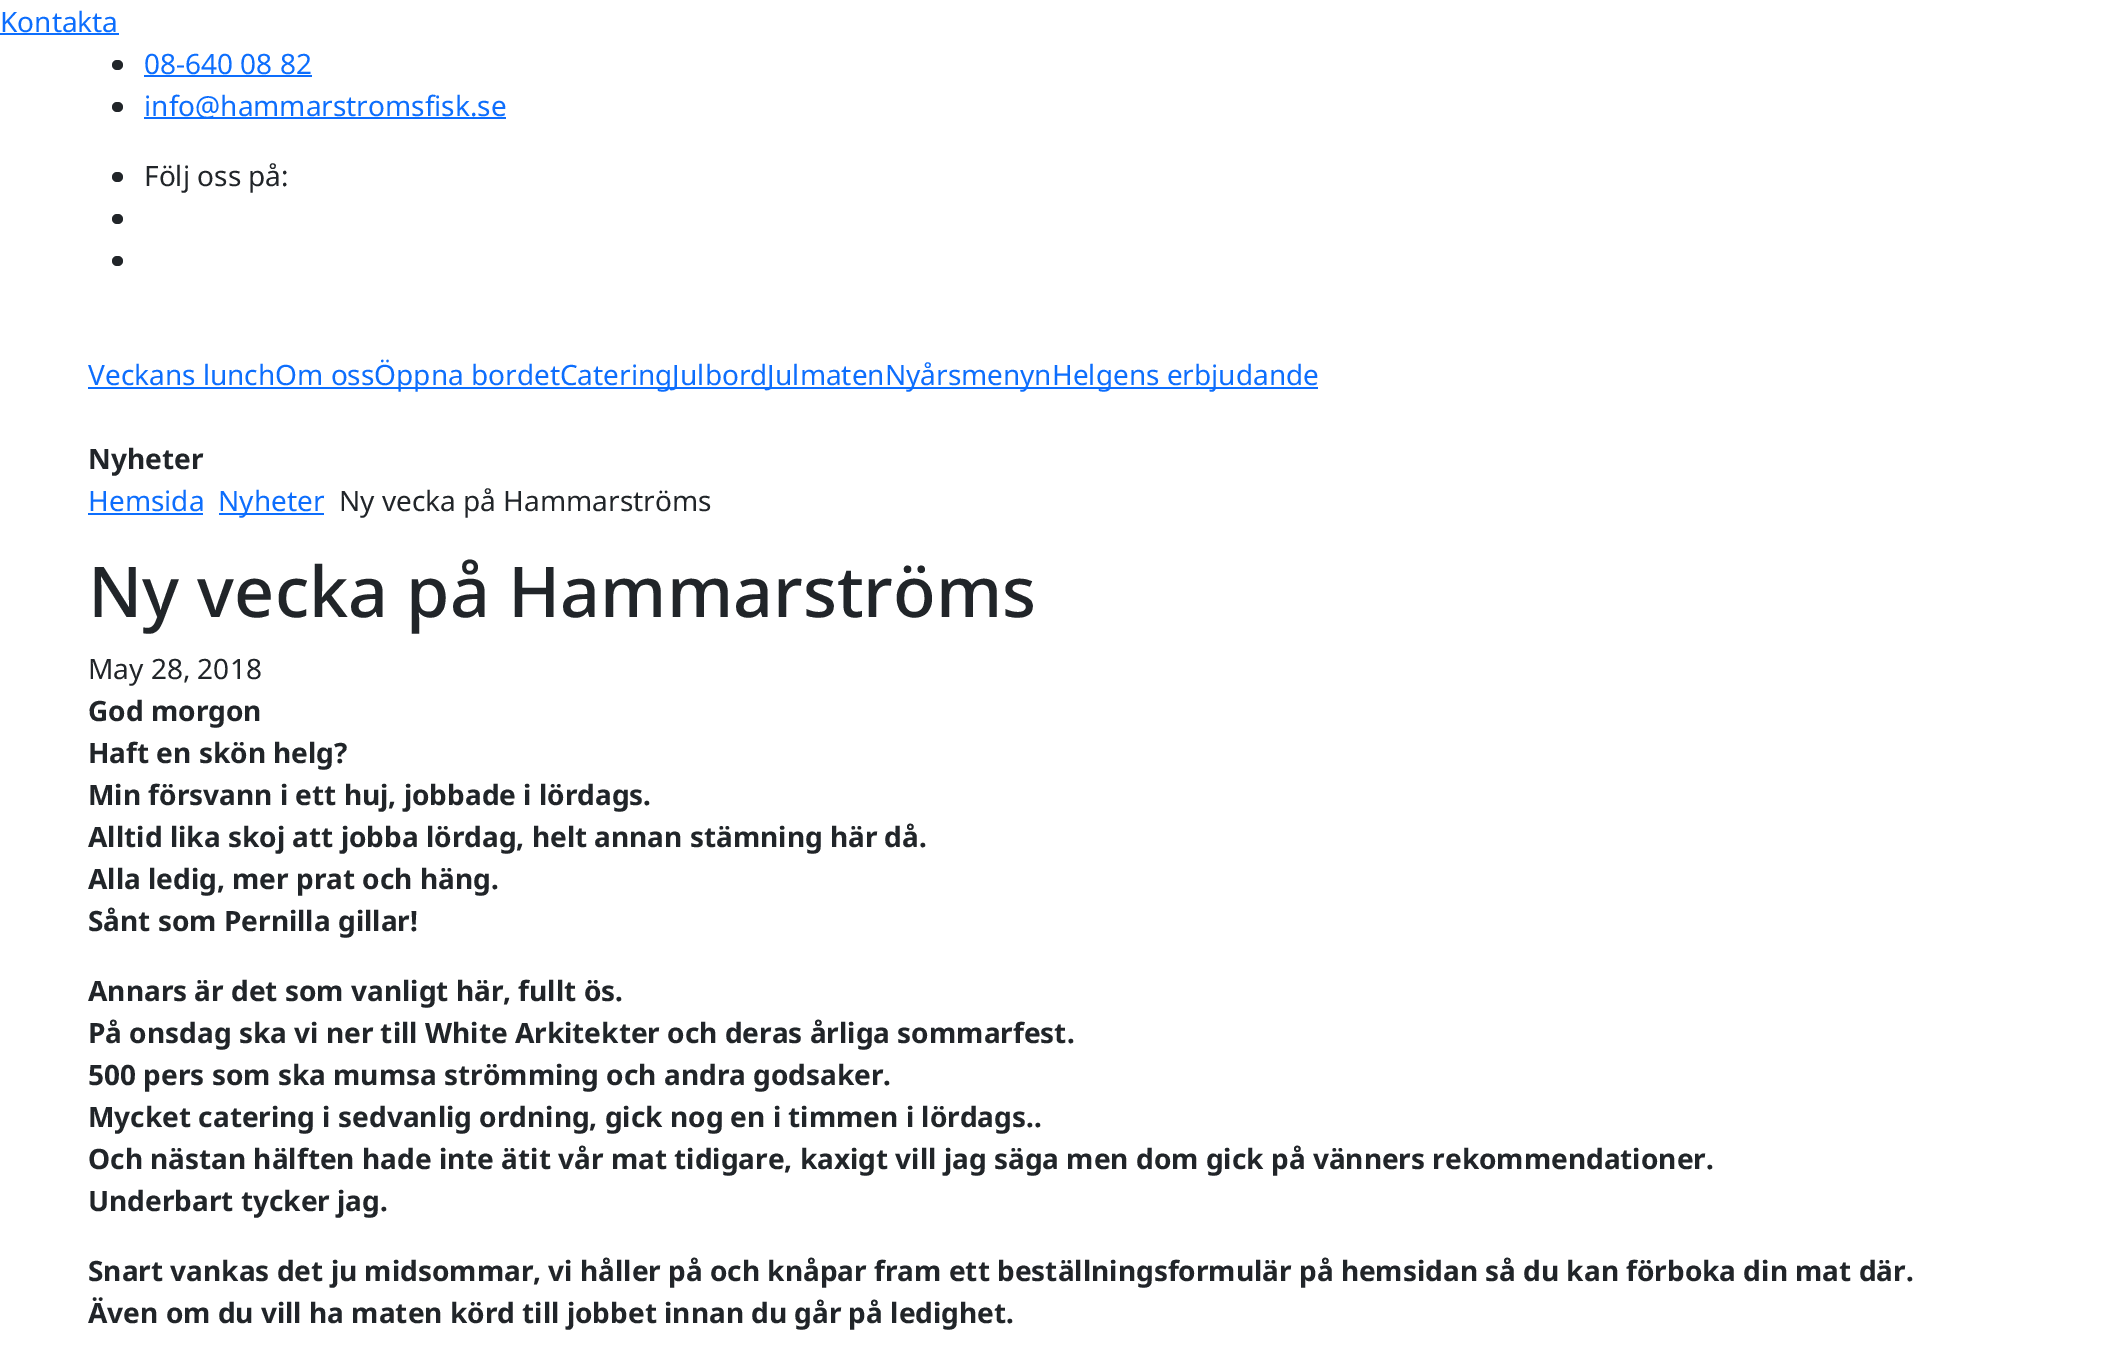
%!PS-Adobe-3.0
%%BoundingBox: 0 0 2127 1350
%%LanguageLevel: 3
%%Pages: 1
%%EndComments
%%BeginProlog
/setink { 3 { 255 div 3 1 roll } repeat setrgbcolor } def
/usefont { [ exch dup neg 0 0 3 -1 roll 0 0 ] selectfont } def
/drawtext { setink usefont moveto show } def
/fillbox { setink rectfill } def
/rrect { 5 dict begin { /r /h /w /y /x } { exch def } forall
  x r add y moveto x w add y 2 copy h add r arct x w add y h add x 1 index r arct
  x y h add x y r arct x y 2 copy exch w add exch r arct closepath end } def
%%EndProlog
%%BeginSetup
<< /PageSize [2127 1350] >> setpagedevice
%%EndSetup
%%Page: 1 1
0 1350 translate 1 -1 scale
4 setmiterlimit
0 0 2127 1350 255 255 255 fillbox
(Kontakta) 0 32 /NotoSans-Regular 28 13 110 253 drawtext
0 33 119 2 13 110 253 fillbox
33 37 41 setink
112 60 11 10 5 rrect fill
(08-640 08 82) 144 74 /NotoSans-Regular 28 13 110 253 drawtext
144 75 168 2 13 110 253 fillbox
33 37 41 setink
112 102 11 10 5 rrect fill
144 117 362 2 13 110 253 fillbox
(info@hammarstromsfisk.se) 144 116 /NotoSans-Regular 28 13 110 253 drawtext
33 37 41 setink
112 172 11 10 5 rrect fill
(Följ oss på:) 144 186 /NotoSans-Regular 28 33 37 41 drawtext
112 214 11 10 5 rrect fill
112 256 11 10 5 rrect fill
88 387 1230 2 13 110 253 fillbox
(Veckans lunchOm ossÖppna bordetCateringJulbordJulmatenNyårsmenynHelgens erbjudande) 88 385 /NotoSans-Regular 28 13 110 253 drawtext
(Nyheter) 88 469 /NotoSans-Bold 28 33 37 41 drawtext
(Hemsida) 88 511 /NotoSans-Regular 28 13 110 253 drawtext
88 513 115 2 13 110 253 fillbox
219 513 105 2 13 110 253 fillbox
(Nyheter) 218 511 /NotoSans-Regular 28 13 110 253 drawtext
(Ny vecka på Hammarströms) 339 511 /NotoSans-Regular 28 33 37 41 drawtext
(Ny vecka på Hammarströms) 88 617 /NotoSans-Medium 70 33 37 41 drawtext
(May 28, 2018) 88 679 /NotoSans-Regular 28 33 37 41 drawtext
(God morgon) 88 721 /NotoSans-Bold 28 33 37 41 drawtext
(Haft en skön helg?) 88 763 /NotoSans-Bold 28 33 37 41 drawtext
(Min försvann i ett huj, jobbade i lördags.) 88 805 /NotoSans-Bold 28 33 37 41 drawtext
(Alltid lika skoj att jobba lördag, helt annan stämning här då.) 88 847 /NotoSans-Bold 28 33 37 41 drawtext
(Alla ledig, mer prat och häng.) 88 889 /NotoSans-Bold 28 33 37 41 drawtext
(Sånt som Pernilla gillar!) 88 931 /NotoSans-Bold 28 33 37 41 drawtext
(Annars är det som vanligt här, fullt ös.) 88 1001 /NotoSans-Bold 28 33 37 41 drawtext
(På onsdag ska vi ner till White Arkitekter och deras årliga sommarfest.) 88 1043 /NotoSans-Bold 28 33 37 41 drawtext
(500 pers som ska mumsa strömming och andra godsaker.) 88 1085 /NotoSans-Bold 28 33 37 41 drawtext
(Mycket catering i sedvanlig ordning, gick nog en i timmen i lördags..) 88 1127 /NotoSans-Bold 28 33 37 41 drawtext
(Och nästan hälften hade inte ätit vår mat tidigare, kaxigt vill jag säga men dom gick på vänners rekommendationer.) 88 1169 /NotoSans-Bold 28 33 37 41 drawtext
(Underbart tycker jag.) 88 1211 /NotoSans-Bold 28 33 37 41 drawtext
(Snart vankas det ju midsommar, vi håller på och knåpar fram ett beställningsformulär på hemsidan så du kan förboka din mat där.) 88 1281 /NotoSans-Bold 28 33 37 41 drawtext
(Även om du vill ha maten körd till jobbet innan du går på ledighet.) 88 1323 /NotoSans-Bold 28 33 37 41 drawtext
showpage
%%EOF
